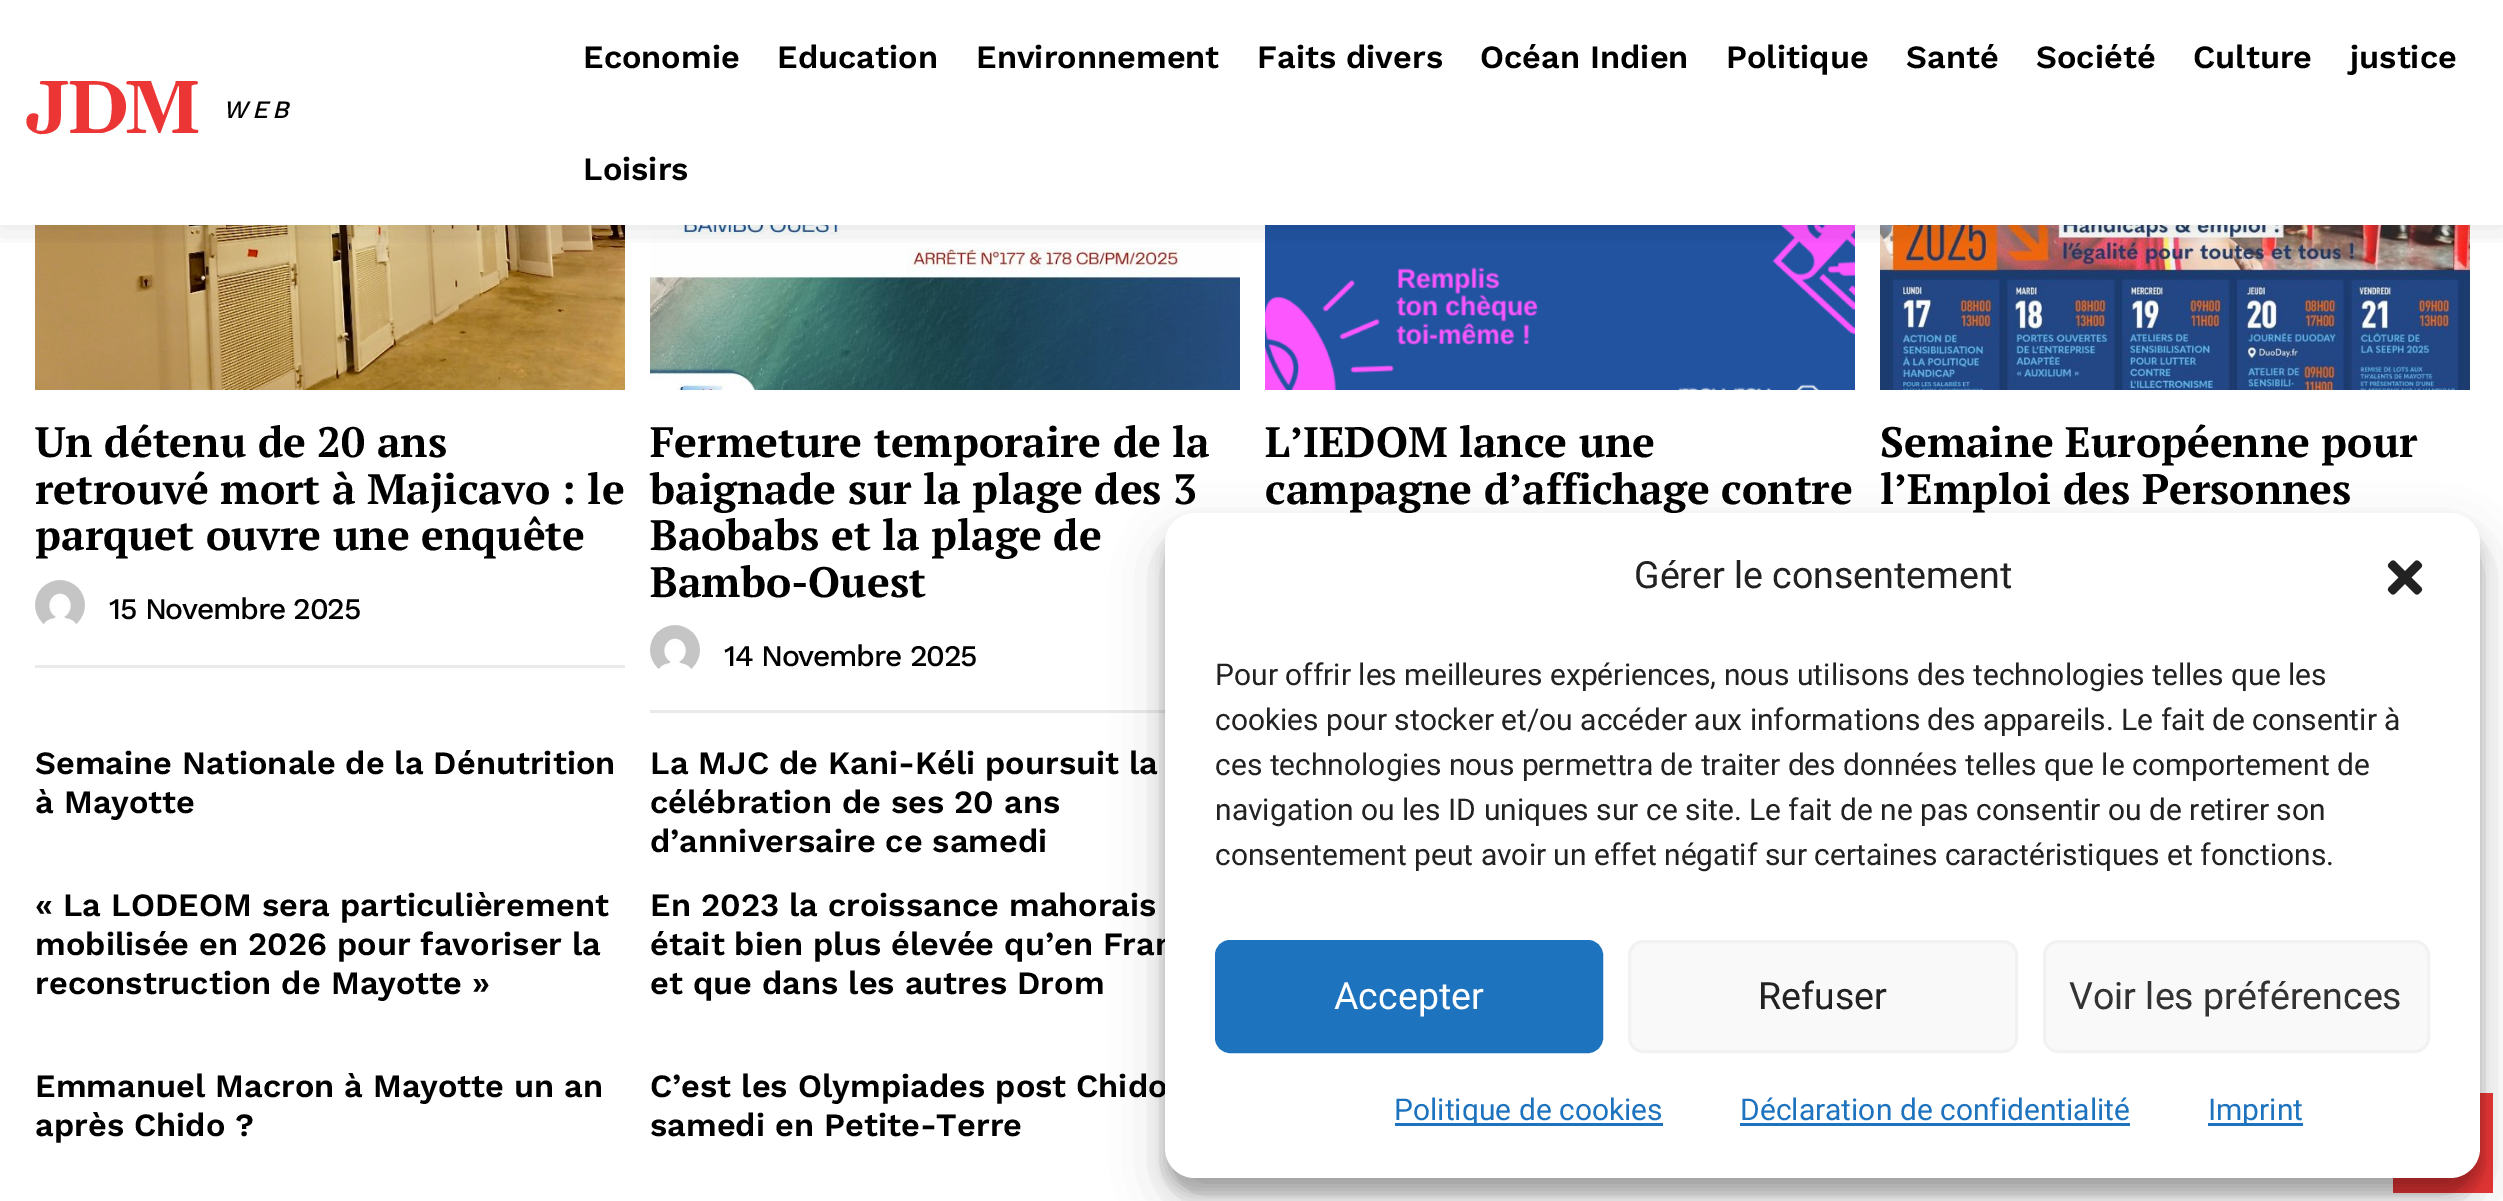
%!PS-Adobe-3.0
%%BoundingBox: 0 0 2503 1201
%%LanguageLevel: 3
%%Pages: 1
%%EndComments
%%BeginProlog
/setink { 3 { 255 div 3 1 roll } repeat setrgbcolor } def
/usefont { [ exch dup neg 0 0 3 -1 roll 0 0 ] selectfont } def
/drawtext { setink usefont moveto show } def
/fillbox { setink rectfill } def
/setalpha { dup .setfillconstantalpha .setstrokeconstantalpha } def
/rrect { 5 dict begin { /r /h /w /y /x } { exch def } forall
  x r add y moveto x w add y 2 copy h add r arct x w add y h add x 1 index r arct
  x y h add x y r arct x y 2 copy exch w add exch r arct closepath end } def
/softshadow { 12 dict begin { /a /b /q /h /w /y /x } { exch def } forall gsave /was 0 def
  9 -2 -9 { dup b mul 4 div /e exch def 1 sub .425 mul 2.718 exch exp 1 add a .99 .min exch div /now exch def
    1 1 now sub 1 was sub div sub setalpha /was now def
    w h .min e 2 mul add 0 gt { x e sub y e sub w e 2 mul add h e 2 mul add
      q e add b .6 mul add w h .min 2 div e add .min 0 .max rrect fill } if } for grestore end } def
/drawimage { 5 dict begin { /h /w /y /x /name } { exch def } forall
  gsave x y translate w h scale
  w h 8 [w 0 0 h 0 0] name (r) file false 3 colorimage grestore end } def
%%EndProlog
%%BeginSetup
<< /PageSize [2503 1201] /PageUsesTransparency true >> setpagedevice
%%EndSetup
%%Page: 1 1
0 .pushpdf14devicefilter
0 1201 translate 1 -1 scale
4 setmiterlimit
0 0 2503 1201 255 255 255 fillbox
(assets/img1.rgb) 35 225 590 165 drawimage
(assets/img3.rgb) 650 225 590 165 drawimage
(assets/img5.rgb) 1265 225 590 165 drawimage
(assets/img6.rgb) 1880 225 590 165 drawimage
gsave
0 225 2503 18 rectclip
0 0 0 setink
0 0 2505 225 0 19 0.12 softshadow
grestore
/Gelasio-Bold 75 usefont
236 53 53 setink
25 133 moveto -4 0 (JDM) ashow
/WorkSans-MediumItalic 25 usefont
0 0 0 setink
223 118 moveto 4.5 0 (WEB) ashow
(Economie) 583 68 /WorkSans-SemiBold 32.5 0 0 0 drawtext
(Education) 777 68 /WorkSans-SemiBold 32.5 0 0 0 drawtext
(Environnement) 976 68 /WorkSans-SemiBold 32.5 0 0 0 drawtext
(Faits divers) 1257 68 /WorkSans-SemiBold 32.5 0 0 0 drawtext
(Océan Indien) 1480 68 /WorkSans-SemiBold 32.5 0 0 0 drawtext
(Politique) 1726 68 /WorkSans-SemiBold 32.5 0 0 0 drawtext
(Santé) 1906 68 /WorkSans-SemiBold 32.5 0 0 0 drawtext
(Société) 2036 68 /WorkSans-SemiBold 32.5 0 0 0 drawtext
(Culture) 2193 68 /WorkSans-SemiBold 32.5 0 0 0 drawtext
(justice) 2350 68 /WorkSans-SemiBold 32.5 0 0 0 drawtext
(Loisirs) 583 180 /WorkSans-SemiBold 32.5 0 0 0 drawtext
35 665 590 3 234 234 234 fillbox
(Un détenu de 20 ans) 35 457 /PTSerif-Bold 42.5 0 0 0 drawtext
(retrouvé mort à Majicavo : le) 35 504 /PTSerif-Bold 42.5 0 0 0 drawtext
(parquet ouvre une enquête) 35 550 /PTSerif-Bold 42.5 0 0 0 drawtext
(assets/img2.rgb) 35 580 50 44 drawimage
/WorkSans-Medium 30 usefont
109 619 moveto -1.25 0 (15 Novembre 2025) ashow
650 710 515 3 234 234 234 fillbox
(Fermeture temporaire de la) 650 457 /PTSerif-Bold 42.5 0 0 0 drawtext
(baignade sur la plage des 3) 650 504 /PTSerif-Bold 42.5 0 0 0 drawtext
(Baobabs et la plage de) 650 550 /PTSerif-Bold 42.5 0 0 0 drawtext
(Bambo-Ouest) 650 597 /PTSerif-Bold 42.5 0 0 0 drawtext
(assets/img4.rgb) 650 625 50 44 drawimage
/WorkSans-Medium 30 usefont
724 666 moveto -1.25 0 (14 Novembre 2025) ashow
(L’IEDOM lance une) 1265 457 /PTSerif-Bold 42.5 0 0 0 drawtext
(campagne d’affichage contre) 1265 504 /PTSerif-Bold 42.5 0 0 0 drawtext
(Semaine Européenne pour) 1880 457 /PTSerif-Bold 42.5 0 0 0 drawtext
(l’Emploi des Personnes) 1880 504 /PTSerif-Bold 42.5 0 0 0 drawtext
(Semaine Nationale de la Dénutrition) 35 774 /WorkSans-SemiBold 32.5 0 0 0 drawtext
(à Mayotte) 35 813 /WorkSans-SemiBold 32.5 0 0 0 drawtext
(La MJC de Kani-Kéli poursuit la) 650 774 /WorkSans-SemiBold 32.5 0 0 0 drawtext
(célébration de ses 20 ans) 650 813 /WorkSans-SemiBold 32.5 0 0 0 drawtext
(d’anniversaire ce samedi) 650 852 /WorkSans-SemiBold 32.5 0 0 0 drawtext
(« La LODEOM sera particulièrement) 35 916 /WorkSans-SemiBold 32.5 0 0 0 drawtext
(mobilisée en 2026 pour favoriser la) 35 955 /WorkSans-SemiBold 32.5 0 0 0 drawtext
(reconstruction de Mayotte ») 35 994 /WorkSans-SemiBold 32.5 0 0 0 drawtext
(En 2023 la croissance mahorais) 650 916 /WorkSans-SemiBold 32.5 0 0 0 drawtext
(était bien plus élevée qu’en Fran) 650 955 /WorkSans-SemiBold 32.5 0 0 0 drawtext
(et que dans les autres Drom) 650 994 /WorkSans-SemiBold 32.5 0 0 0 drawtext
(Emmanuel Macron à Mayotte un an) 35 1097 /WorkSans-SemiBold 32.5 0 0 0 drawtext
(après Chido ?) 35 1136 /WorkSans-SemiBold 32.5 0 0 0 drawtext
(C’est les Olympiades post Chido) 650 1097 /WorkSans-SemiBold 32.5 0 0 0 drawtext
(samedi en Petite-Terre) 650 1136 /WorkSans-SemiBold 32.5 0 0 0 drawtext
2393 1093 100 100 236 53 53 fillbox
0 0 0 setink
1165 528 1315 665 30 7.5 0.23 softshadow
1165 538 1315 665 30 25 0.19 softshadow
255 255 255 setink
1165 513 1315 665 30 rrect fill
(Gérer le consentement) 1634 588 /Roboto-Regular 37.5 34 34 34 drawtext
(assets/img7.rgb) 2387 560 36 35 drawimage
(Pour offrir les meilleures expériences, nous utilisons des technologies telles que les) 1215 685 /Roboto-Regular 30 34 34 34 drawtext
(cookies pour stocker et/ou accéder aux informations des appareils. Le fait de consentir à) 1215 730 /Roboto-Regular 30 34 34 34 drawtext
(ces technologies nous permettra de traiter des données telles que le comportement de) 1215 775 /Roboto-Regular 30 34 34 34 drawtext
(navigation ou les ID uniques sur ce site. Le fait de ne pas consentir ou de retirer son) 1215 820 /Roboto-Regular 30 34 34 34 drawtext
(consentement peut avoir un effet négatif sur certaines caractéristiques et fonctions.) 1215 865 /Roboto-Regular 30 34 34 34 drawtext
30 115 190 setink
1216.5 941.5 385 110 13.5 rrect gsave fill grestore
3 setlinewidth
stroke
(Accepter) 1334 1009 /Roboto-Regular 37.5 255 255 255 drawtext
249 249 249 setink
1629.5 941.5 387 110 13.5 rrect gsave fill grestore
242 242 242 setink
stroke
(Refuser) 1758 1009 /Roboto-Regular 37.5 34 34 34 drawtext
249 249 249 setink
2044.5 941.5 384 110 13.5 rrect gsave fill grestore
242 242 242 setink
stroke
(Voir les préférences) 2069 1009 /Roboto-Regular 37.5 51 51 51 drawtext
1395 1123 268 3 30 115 190 fillbox
(Politique de cookies) 1394 1120 /Roboto-Regular 30 30 115 190 drawtext
(Déclaration de confidentialité) 1740 1120 /Roboto-Regular 30 30 115 190 drawtext
1740 1123 390 3 30 115 190 fillbox
2208 1123 95 3 30 115 190 fillbox
(Imprint) 2208 1120 /Roboto-Regular 30 30 115 190 drawtext
.poppdf14devicefilter showpage
%%EOF
